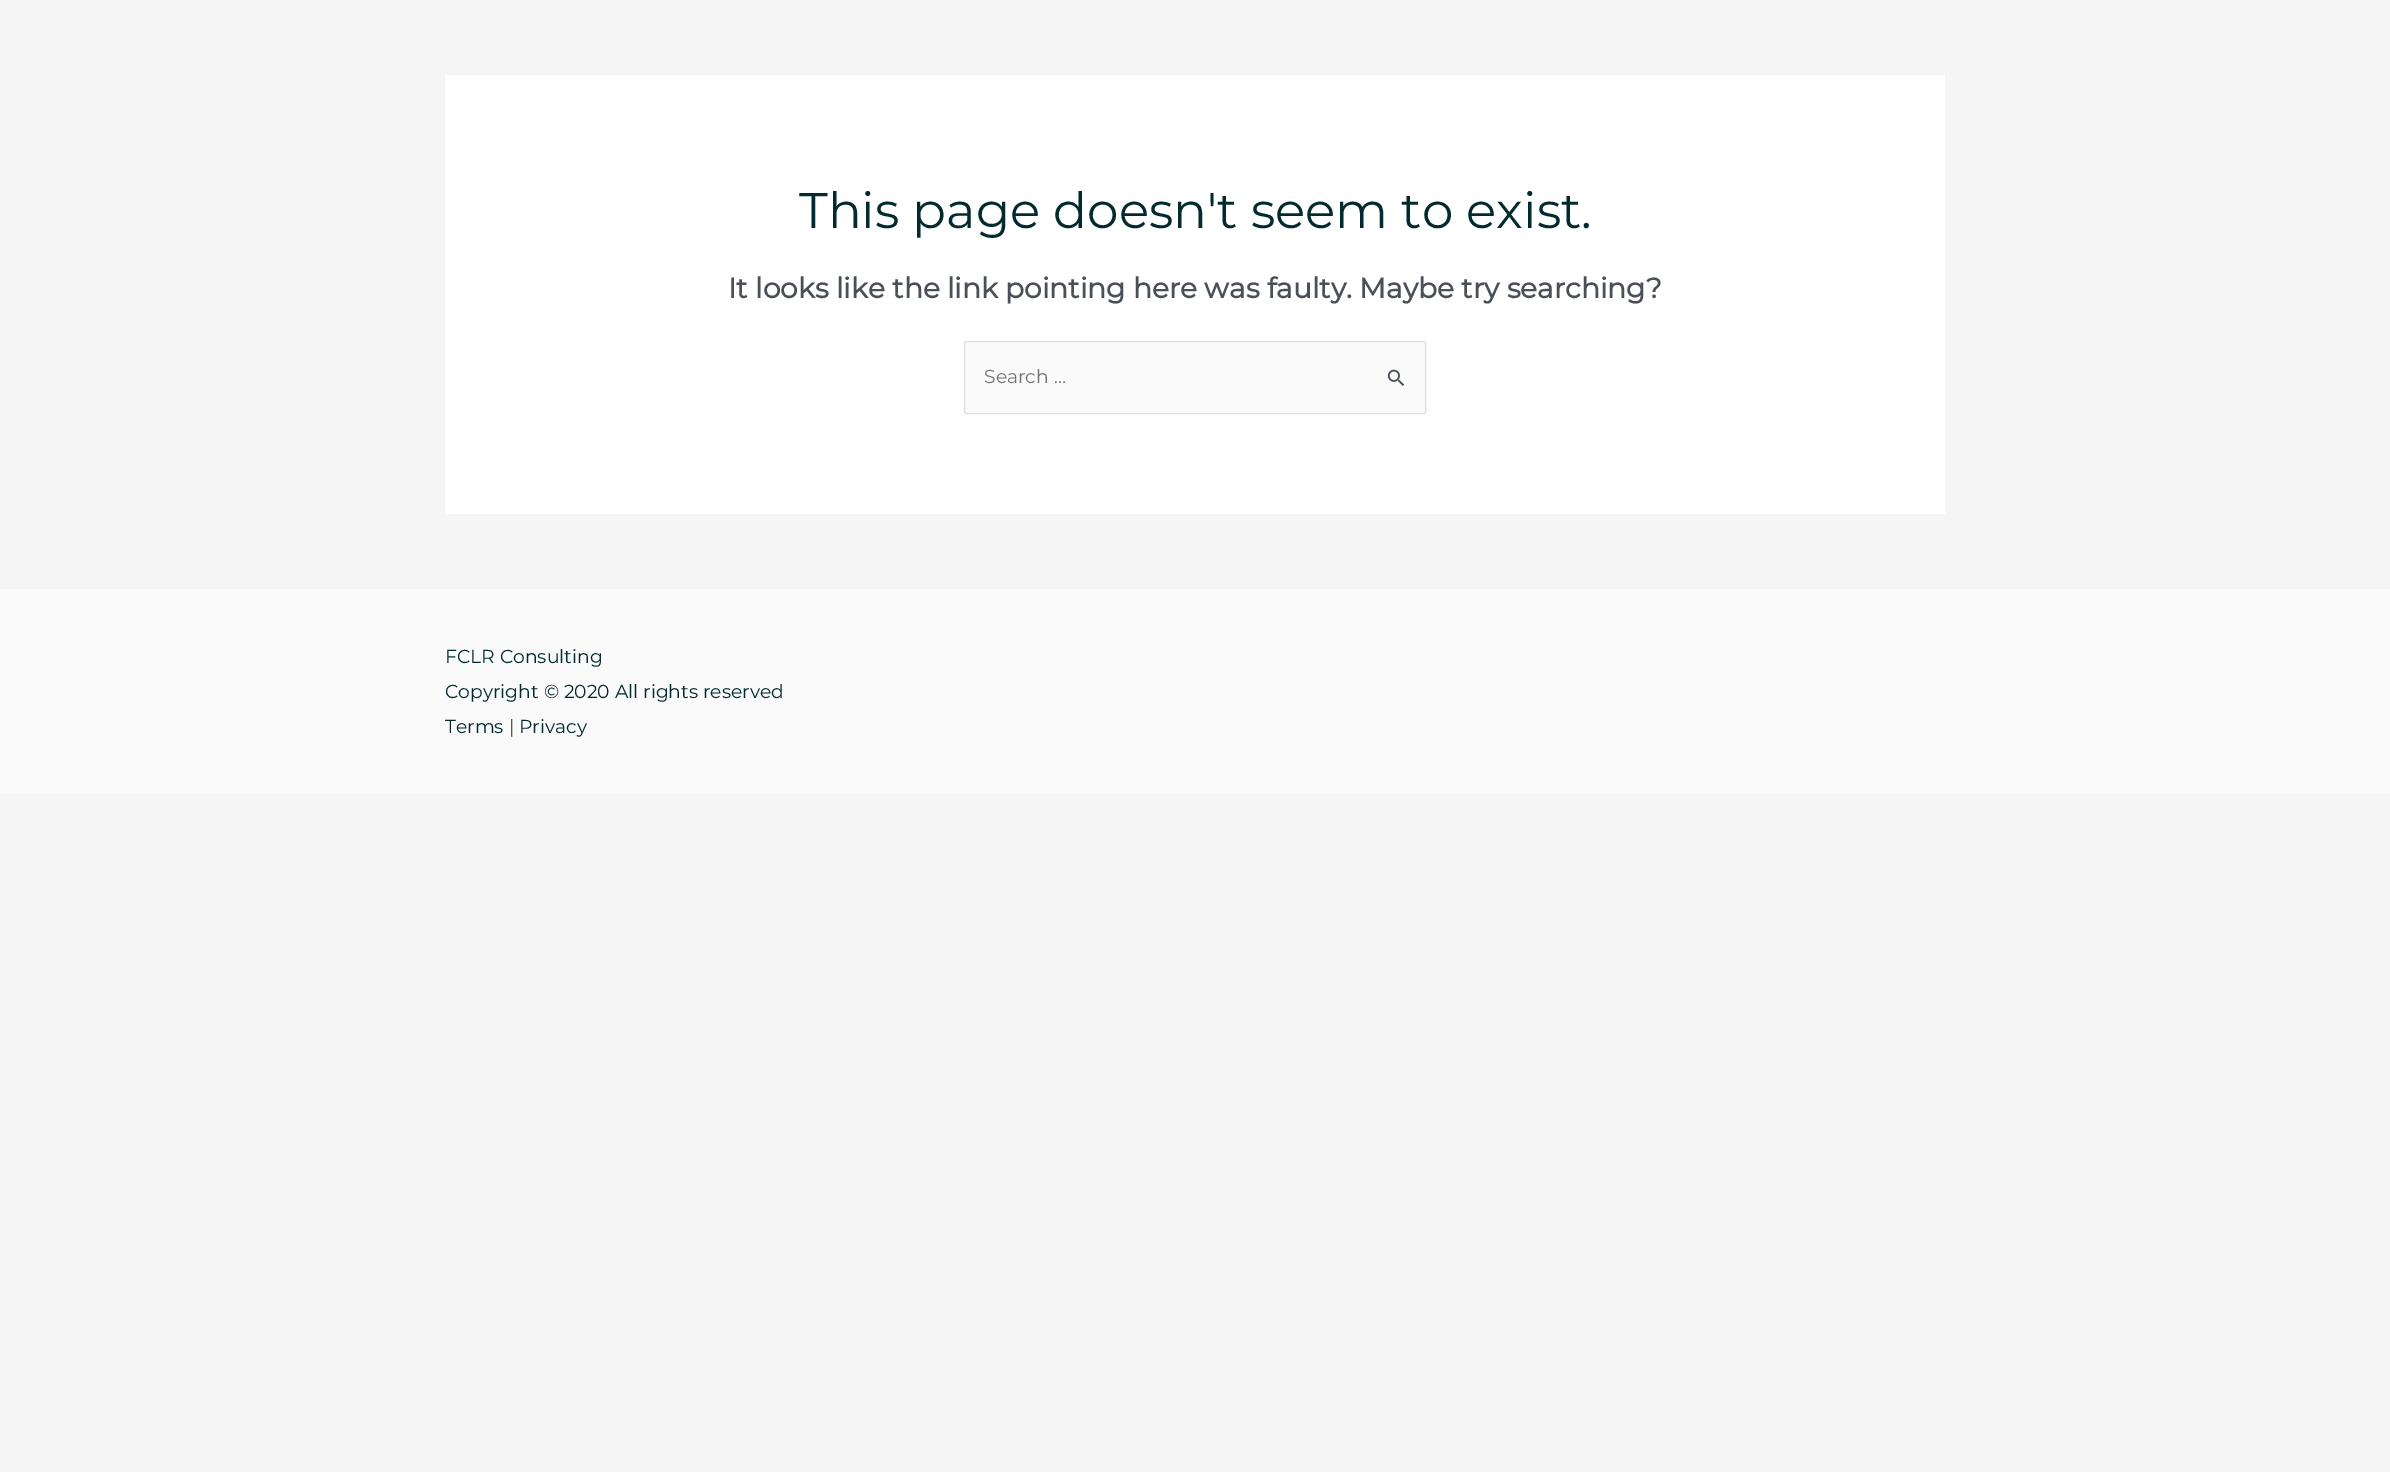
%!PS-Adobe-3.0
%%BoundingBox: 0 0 2390 1472
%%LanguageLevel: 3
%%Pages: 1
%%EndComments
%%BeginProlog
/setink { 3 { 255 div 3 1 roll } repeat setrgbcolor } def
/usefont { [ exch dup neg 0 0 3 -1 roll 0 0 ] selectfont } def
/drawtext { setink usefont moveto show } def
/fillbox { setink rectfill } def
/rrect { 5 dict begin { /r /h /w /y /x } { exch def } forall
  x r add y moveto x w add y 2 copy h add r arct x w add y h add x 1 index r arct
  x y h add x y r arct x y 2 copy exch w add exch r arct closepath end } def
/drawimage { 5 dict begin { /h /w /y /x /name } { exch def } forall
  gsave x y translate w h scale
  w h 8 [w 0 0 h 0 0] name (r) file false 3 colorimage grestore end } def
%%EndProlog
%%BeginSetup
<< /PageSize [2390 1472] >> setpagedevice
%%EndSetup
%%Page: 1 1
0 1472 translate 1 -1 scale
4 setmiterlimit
0 0 2390 1472 245 245 245 fillbox
445 75 1500 439 255 255 255 fillbox
(This page doesn't seem to exist.) 799 228 /Montserrat-Thin 50 3 43 47 drawtext
(It looks like the link pointing here was faulty. Maybe try searching?) 728 298 /Montserrat-Bold 28.1 75 79 88 drawtext
250 250 250 setink
964.5 341.5 461 72 2 rrect gsave fill grestore
221 221 221 setink
stroke
(Search …) 984 383 /Montserrat-Thin 18.75 117 117 117 drawtext
(assets/img1.rgb) 1387 369 18 17 drawimage
0 589 2390 205 250 250 250 fillbox
(FCLR Consulting) 445 663 /Montserrat-Thin 18.75 3 43 47 drawtext
(Copyright © 2020 All rights reserved) 445 698 /Montserrat-Thin 18.75 3 43 47 drawtext
(Terms | Privacy) 445 733 /Montserrat-Thin 18.75 3 43 47 drawtext
showpage
%%EOF
